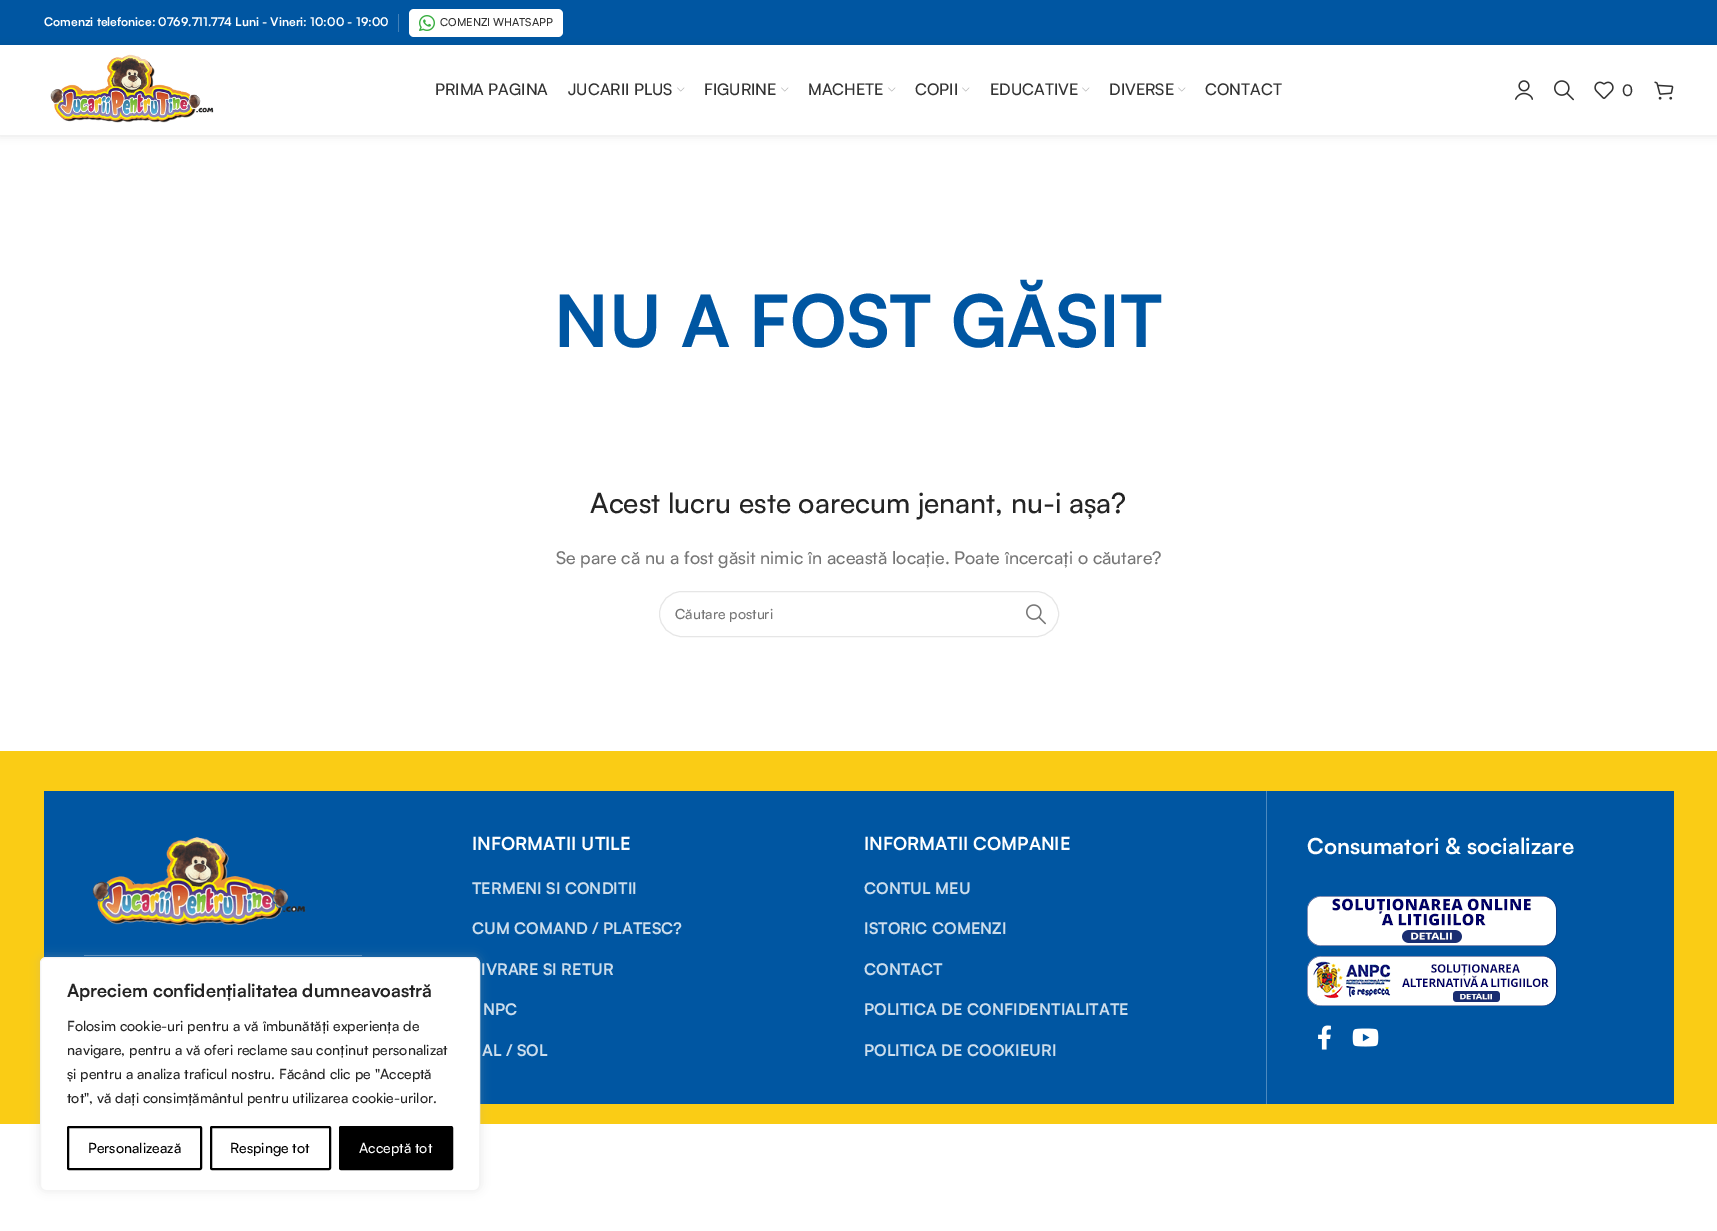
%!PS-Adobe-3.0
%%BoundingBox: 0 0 1717 1231
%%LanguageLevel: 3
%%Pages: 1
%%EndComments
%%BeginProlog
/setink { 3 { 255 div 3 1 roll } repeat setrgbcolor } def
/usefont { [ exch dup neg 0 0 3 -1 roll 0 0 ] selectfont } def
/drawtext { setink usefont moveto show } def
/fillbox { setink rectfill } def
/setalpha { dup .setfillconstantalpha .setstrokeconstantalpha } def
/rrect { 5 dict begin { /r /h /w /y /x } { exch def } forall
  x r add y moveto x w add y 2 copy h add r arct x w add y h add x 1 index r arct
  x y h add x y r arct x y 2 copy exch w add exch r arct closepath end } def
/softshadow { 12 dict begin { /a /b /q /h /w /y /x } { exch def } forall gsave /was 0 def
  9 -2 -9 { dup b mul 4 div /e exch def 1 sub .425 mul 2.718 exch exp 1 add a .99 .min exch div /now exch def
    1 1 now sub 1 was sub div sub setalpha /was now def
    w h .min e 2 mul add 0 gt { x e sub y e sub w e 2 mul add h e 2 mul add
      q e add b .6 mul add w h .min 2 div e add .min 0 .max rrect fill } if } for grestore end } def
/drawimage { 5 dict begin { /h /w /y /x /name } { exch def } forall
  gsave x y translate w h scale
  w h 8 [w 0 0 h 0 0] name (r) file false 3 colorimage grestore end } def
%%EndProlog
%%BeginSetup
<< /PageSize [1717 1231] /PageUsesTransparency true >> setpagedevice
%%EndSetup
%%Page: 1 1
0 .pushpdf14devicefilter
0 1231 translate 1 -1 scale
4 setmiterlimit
0 0 1717 1231 255 255 255 fillbox
0 0 1717 45 0 86 162 fillbox
(Comenzi telefonice: 0769.711.774 Luni - Vineri: 10:00 - 19:00) 44 26 /Satoshi-Bold 12 255 255 255 drawtext
398 14 1 18 64 128 185 fillbox
gsave
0 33 moveto 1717 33 lineto 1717 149 lineto 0 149 lineto closepath 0 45 moveto 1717 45 lineto 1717 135 lineto 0 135 lineto closepath eoclip newpath
0 0 0 setink
0 46 1717 90 0 4 0.1 softshadow
grestore
255 255 255 setink
409 9 154 28 5 rrect fill
(assets/img1.rgb) 419 15 16 16 drawimage
(COMENZI WHATSAPP) 440 26 /Satoshi-Medium 11 51 51 51 drawtext
(assets/img2.rgb) 50 54 164 69 drawimage
(PRIMA PAGINA) 435 95 /Satoshi-Medium 16 51 51 51 drawtext
(JUCARII PLUS) 568 95 /Satoshi-Medium 16 51 51 51 drawtext
(assets/img3.rgb) 677 87 8 5 drawimage
(FIGURINE) 704 95 /Satoshi-Medium 16 51 51 51 drawtext
(assets/img3.rgb) 781 87 8 5 drawimage
(MACHETE) 808 95 /Satoshi-Medium 16 51 51 51 drawtext
(assets/img3.rgb) 888 87 8 5 drawimage
(COPII) 915 95 /Satoshi-Medium 16 51 51 51 drawtext
(assets/img3.rgb) 962 87 8 5 drawimage
(EDUCATIVE) 990 95 /Satoshi-Medium 16 51 51 51 drawtext
(assets/img3.rgb) 1082 87 8 5 drawimage
(DIVERSE) 1109 95 /Satoshi-Medium 16 51 51 51 drawtext
(assets/img3.rgb) 1178 87 8 5 drawimage
(CONTACT) 1205 95 /Satoshi-Medium 16 51 51 51 drawtext
(assets/img4.rgb) 1515 80 18 20 drawimage
(assets/img5.rgb) 1554 80 20 21 drawimage
(assets/img6.rgb) 1594 81 20 18 drawimage
(0) 1622 96 /Satoshi-Medium 16 51 51 51 drawtext
(assets/img7.rgb) 1654 81 20 19 drawimage
(NU A FOST GĂSIT) 554 347 /Satoshi-Bold 72 0 86 162 drawtext
(Acest lucru este oarecum jenant, nu-i așa?) 590 513 /Satoshi-Medium 28 36 36 36 drawtext
(Se pare că nu a fost găsit nimic în această locație. Poate încercați o căutare?) 556 564 /Satoshi-Medium 17.6 118 118 118 drawtext
230 230 230 setink
659.5 591.5 399 45 22.5 rrect stroke
(Căutare posturi) 675 619 /Satoshi-Medium 14 118 118 118 drawtext
(assets/img8.rgb) 1026 604 20 21 drawimage
0 751 1717 373 250 204 21 fillbox
44 791 1222 313 0 86 162 fillbox
(assets/img9.rgb) 92 837 214 89 drawimage
84 955 278 1 77 137 190 fillbox
(INFORMATII UTILE) 472 850 /Satoshi-Bold 18 255 255 255 drawtext
(TERMENI SI CONDITII) 472 894 /Satoshi-Bold 16 204 221 236 drawtext
(CUM COMAND / PLATESC?) 472 934 /Satoshi-Bold 16 204 221 236 drawtext
(IVRARE SI RETUR) 481 975 /Satoshi-Bold 16 204 221 236 drawtext
(NPC) 483 1015 /Satoshi-Bold 16 204 221 236 drawtext
(AL / SOL) 482 1056 /Satoshi-Bold 16 204 221 236 drawtext
(INFORMATII COMPANIE) 864 850 /Satoshi-Bold 18 255 255 255 drawtext
(CONTUL MEU) 864 894 /Satoshi-Bold 16 204 221 236 drawtext
(ISTORIC COMENZI) 864 934 /Satoshi-Bold 16 204 221 236 drawtext
(CONTACT) 864 975 /Satoshi-Bold 16 204 221 236 drawtext
(POLITICA DE CONFIDENTIALITATE) 864 1015 /Satoshi-Bold 16 204 221 236 drawtext
(POLITICA DE COOKIEURI) 864 1056 /Satoshi-Bold 16 204 221 236 drawtext
1267 791 407 313 0 86 162 fillbox
1266 791 1 313 77 137 190 fillbox
(Consumatori & socializare) 1307 854 /Satoshi-Bold 22 255 255 255 drawtext
(assets/img10.rgb) 1307 896 250 50 drawimage
(assets/img11.rgb) 1307 956 250 50 drawimage
(assets/img12.rgb) 1318 1025 13 25 drawimage
(assets/img13.rgb) 1352 1028 27 19 drawimage
172 171 171 setink
40 956 440 234 6 5 0.3 softshadow
255 255 255 setink
40.5 957.5 439 233 5.5 rrect gsave fill grestore
244 244 244 setink
stroke
(Apreciem confidențialitatea dumneavoastră) 67 997 /Satoshi-Bold 18 36 36 36 drawtext
(Folosim cookie-uri pentru a vă îmbunătăți experiența de) 67 1031 /Satoshi-Medium 14 36 36 36 drawtext
(navigare, pentru a vă oferi reclame sau conținut personalizat) 67 1055 /Satoshi-Medium 14 36 36 36 drawtext
(și pentru a analiza traficul nostru. Făcând clic pe "Acceptă) 67 1079 /Satoshi-Medium 14 36 36 36 drawtext
(tot", vă dați consimțământul pentru utilizarea cookie-urilor.) 67 1103 /Satoshi-Medium 14 36 36 36 drawtext
0 0 0 setink
2 setlinewidth
68 1127 133 42 1 rrect stroke
(Personalizează) 88 1153 /Satoshi-Medium 14 0 0 0 drawtext
211 1127 119 42 1 rrect stroke
(Respinge tot) 230 1153 /Satoshi-Medium 14 0 0 0 drawtext
340 1127 112 42 1 rrect gsave fill grestore
stroke
(Acceptă tot) 359 1153 /Satoshi-Medium 14 255 255 255 drawtext
.poppdf14devicefilter showpage
%%EOF
